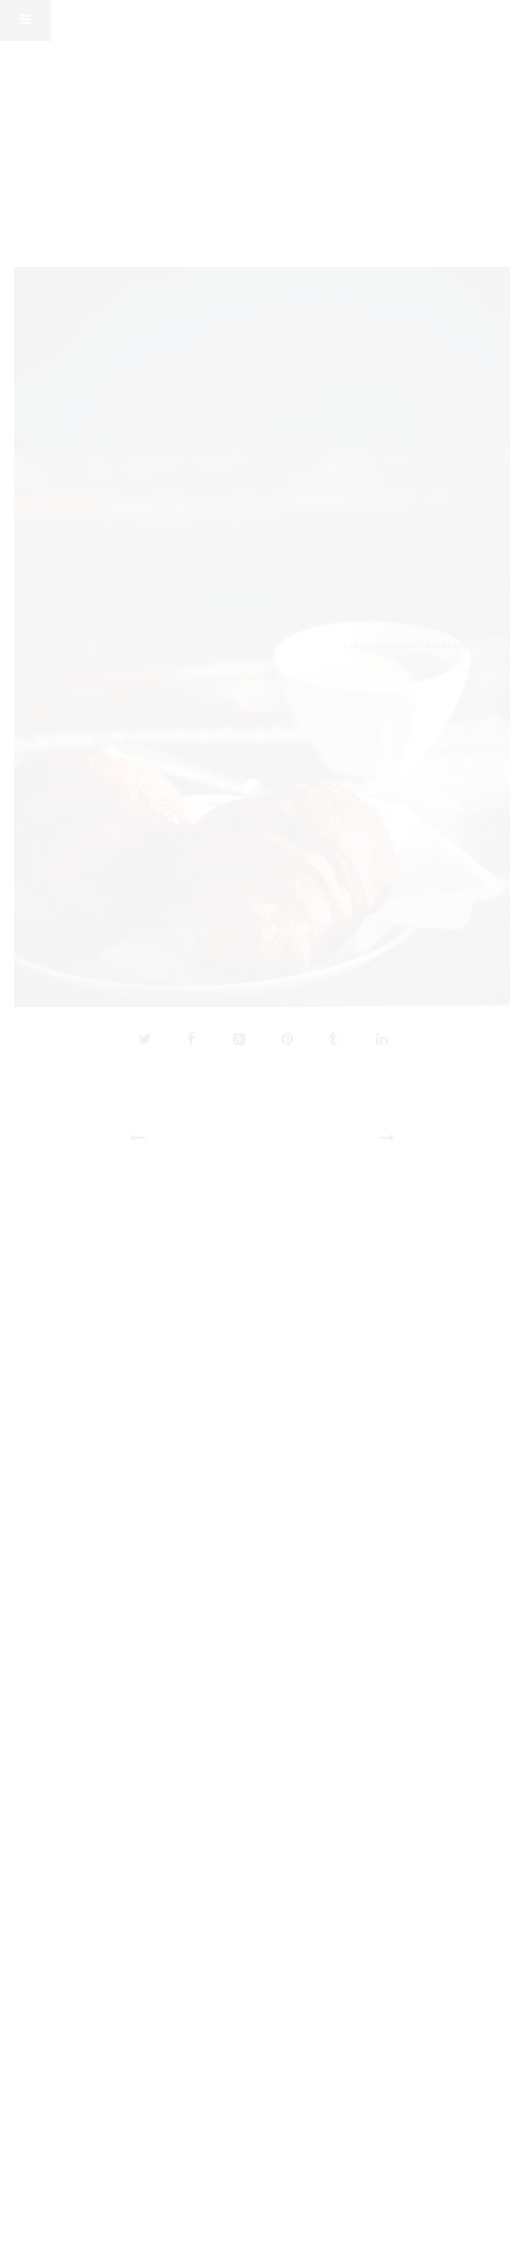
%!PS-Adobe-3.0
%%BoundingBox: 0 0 524 2253
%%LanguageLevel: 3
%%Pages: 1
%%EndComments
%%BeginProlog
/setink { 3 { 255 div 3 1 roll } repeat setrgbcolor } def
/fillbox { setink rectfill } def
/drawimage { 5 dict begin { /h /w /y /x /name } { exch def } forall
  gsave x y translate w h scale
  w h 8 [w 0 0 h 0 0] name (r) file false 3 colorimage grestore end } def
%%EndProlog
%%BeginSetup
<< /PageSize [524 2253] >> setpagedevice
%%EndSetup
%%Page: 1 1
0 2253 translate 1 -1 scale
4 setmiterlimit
0 0 524 2253 255 255 255 fillbox
0 0 51 41 245 245 245 fillbox
(assets/img1.rgb) 20 14 12 10 drawimage
(assets/img2.rgb) 14 267 496 740 drawimage
(assets/img3.rgb) 138 1034 13 10 drawimage
(assets/img4.rgb) 187 1032 8 13 drawimage
(assets/img5.rgb) 233 1033 12 12 drawimage
(assets/img6.rgb) 281 1033 12 12 drawimage
(assets/img7.rgb) 329 1032 8 13 drawimage
(assets/img8.rgb) 376 1033 12 12 drawimage
(assets/img9.rgb) 130 1134 15 7 drawimage
(assets/img10.rgb) 379 1134 15 7 drawimage
showpage
%%EOF
